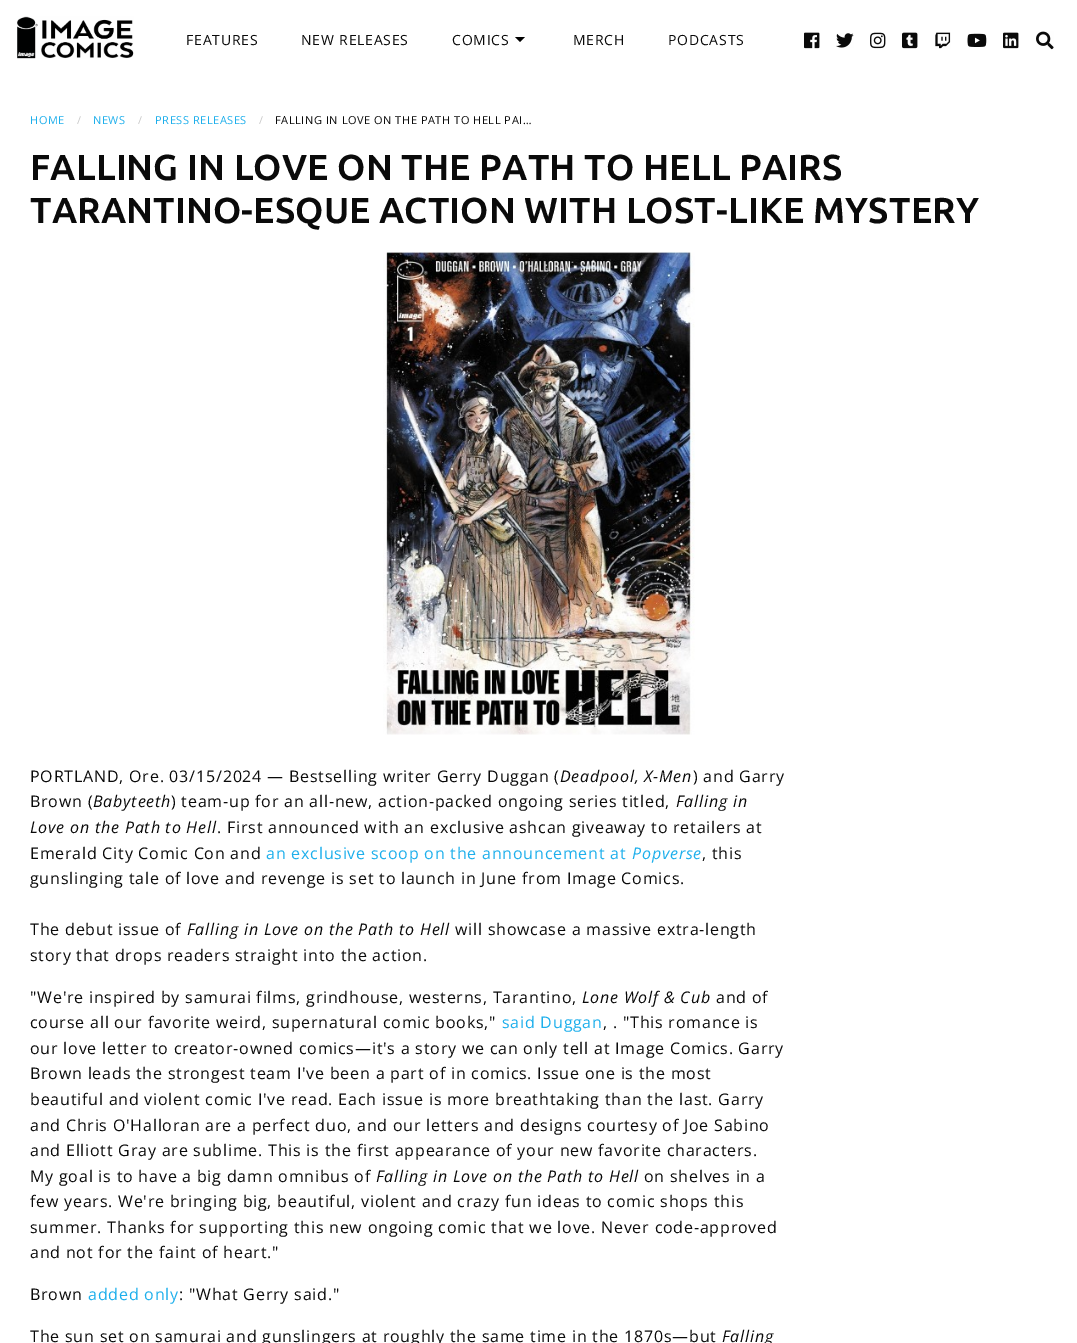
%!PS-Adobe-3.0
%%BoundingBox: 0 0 1077 1343
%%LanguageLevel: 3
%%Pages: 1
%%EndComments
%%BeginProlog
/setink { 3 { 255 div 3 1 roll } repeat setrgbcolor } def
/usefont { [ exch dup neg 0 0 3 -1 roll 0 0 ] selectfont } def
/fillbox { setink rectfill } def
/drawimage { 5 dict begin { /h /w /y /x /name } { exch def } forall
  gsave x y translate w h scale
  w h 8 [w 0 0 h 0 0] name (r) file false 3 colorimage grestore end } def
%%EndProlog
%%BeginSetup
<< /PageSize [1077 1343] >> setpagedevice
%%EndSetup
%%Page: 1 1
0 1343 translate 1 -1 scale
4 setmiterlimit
0 0 1077 1343 255 255 255 fillbox
(assets/img1.rgb) 17 16 117 43 drawimage
/OpenSans-Regular 14 usefont
10 10 10 setink
186 45 moveto 0.8 0 (FEATURES) ashow
301 45 moveto 0.8 0 (NEW RELEASES) ashow
452 45 moveto 0.8 0 (COMICS) ashow
0 0 0 setink
515 37 moveto 525 37 lineto 520 42 lineto closepath fill
10 10 10 setink
573 45 moveto 0.8 0 (MERCH) ashow
668 45 moveto 0.8 0 (PODCASTS) ashow
(assets/img2.rgb) 804 32 16 17 drawimage
(assets/img3.rgb) 836 33 18 15 drawimage
(assets/img4.rgb) 870 32 16 17 drawimage
(assets/img5.rgb) 902 32 16 17 drawimage
(assets/img6.rgb) 935 32 16 17 drawimage
(assets/img7.rgb) 967 33 20 14 drawimage
(assets/img8.rgb) 1003 32 16 17 drawimage
(assets/img9.rgb) 1036 31 18 19 drawimage
/OpenSans-Regular 11 usefont
29 175 236 setink
30 124 moveto 0.55 0 (HOME) ashow
202 202 202 setink
77 124 moveto 0.55 0 (/) ashow
29 175 236 setink
93 124 moveto 0.55 0 (NEWS) ashow
202 202 202 setink
138 124 moveto 0.55 0 (/) ashow
29 175 236 setink
155 124 moveto 0.55 0 (PRESS RELEASES) ashow
202 202 202 setink
259 124 moveto 0.55 0 (/) ashow
10 10 10 setink
275 124 moveto 0.55 0 (FALLING IN LOVE ON THE PATH TO HELL PAI…) ashow
/Ubuntu-Bold 36 usefont
30 180 moveto 0.1 0 (FALLING IN LOVE ON THE PATH TO HELL PAIRS) ashow
30 223 moveto 0.1 0 (TARANTINO-ESQUE ACTION WITH LOST-LIKE MYSTERY) ashow
(assets/img10.rgb) 383 252 312 483 drawimage
/OpenSans-Regular 16 usefont
30 782 moveto 0.8 0 (PORTLAND, Ore. 03/15/2024 — Bestselling writer Gerry Duggan \() ashow
/OpenSans-Italic 16 usefont
560 782 moveto 0.8 0 (Deadpool, X-Men) ashow
/OpenSans-Regular 16 usefont
693 782 moveto 0.8 0 (\) and Garry) ashow
30 807 moveto 0.8 0 (Brown \() ashow
/OpenSans-Italic 16 usefont
93 807 moveto 0.8 0 (Babyteeth) ashow
/OpenSans-Regular 16 usefont
171 807 moveto 0.8 0 (\) team-up for an all-new, action-packed ongoing series titled,) ashow
/OpenSans-Italic 16 usefont
676 807 moveto 0.8 0 (Falling in) ashow
30 833 moveto 0.8 0 (Love on the Path to Hell) ashow
/OpenSans-Regular 16 usefont
217 833 moveto 0.8 0 (. First announced with an exclusive ashcan giveaway to retailers at) ashow
30 859 moveto 0.8 0 (Emerald City Comic Con and) ashow
29 175 236 setink
266 859 moveto 0.8 0 (an exclusive scoop on the announcement at) ashow
/OpenSans-Italic 16 usefont
632 859 moveto 0.8 0 (Popverse) ashow
/OpenSans-Regular 16 usefont
10 10 10 setink
702 859 moveto 0.8 0 (, this) ashow
30 884 moveto 0.8 0 (gunslinging tale of love and revenge is set to launch in June from Image Comics.) ashow
30 935 moveto 0.8 0 (The debut issue of) ashow
/OpenSans-Italic 16 usefont
187 935 moveto 0.8 0 (Falling in Love on the Path to Hell) ashow
/OpenSans-Regular 16 usefont
455 935 moveto 0.8 0 (will showcase a massive extra-length) ashow
30 961 moveto 0.8 0 (story that drops readers straight into the action.) ashow
30 1003 moveto 0.8 0 ("We're inspired by samurai films, grindhouse, westerns, Tarantino,) ashow
/OpenSans-Italic 16 usefont
582 1003 moveto 0.8 0 (Lone Wolf & Cub) ashow
/OpenSans-Regular 16 usefont
716 1003 moveto 0.8 0 (and of) ashow
30 1028 moveto 0.8 0 (course all our favorite weird, supernatural comic books,") ashow
29 175 236 setink
502 1028 moveto 0.8 0 (said Duggan) ashow
10 10 10 setink
603 1028 moveto 0.8 0 (, . "This romance is) ashow
30 1054 moveto 0.8 0 (our love letter to creator-owned comics—it's a story we can only tell at Image Comics. Garry) ashow
30 1079 moveto 0.8 0 (Brown leads the strongest team I've been a part of in comics. Issue one is the most) ashow
30 1105 moveto 0.8 0 (beautiful and violent comic I've read. Each issue is more breathtaking than the last. Garry) ashow
30 1131 moveto 0.8 0 (and Chris O'Halloran are a perfect duo, and our letters and designs courtesy of Joe Sabino) ashow
30 1156 moveto 0.8 0 (and Elliott Gray are sublime. This is the first appearance of your new favorite characters.) ashow
30 1182 moveto 0.8 0 (My goal is to have a big damn omnibus of) ashow
/OpenSans-Italic 16 usefont
376 1182 moveto 0.8 0 (Falling in Love on the Path to Hell) ashow
/OpenSans-Regular 16 usefont
644 1182 moveto 0.8 0 (on shelves in a) ashow
30 1207 moveto 0.8 0 (few years. We're bringing big, beautiful, violent and crazy fun ideas to comic shops this) ashow
30 1233 moveto 0.8 0 (summer. Thanks for supporting this new ongoing comic that we love. Never code-approved) ashow
30 1258 moveto 0.8 0 (and not for the faint of heart.") ashow
30 1300 moveto 0.8 0 (Brown) ashow
29 175 236 setink
88 1300 moveto 0.8 0 (added only) ashow
10 10 10 setink
179 1300 moveto 0.8 0 (: "What Gerry said.") ashow
30 1342 moveto 0.8 0 (The sun set on samurai and gunslingers at roughly the same time in the 1870s—but) ashow
/OpenSans-Italic 16 usefont
722 1342 moveto 0.8 0 (Falling) ashow
showpage
%%EOF
